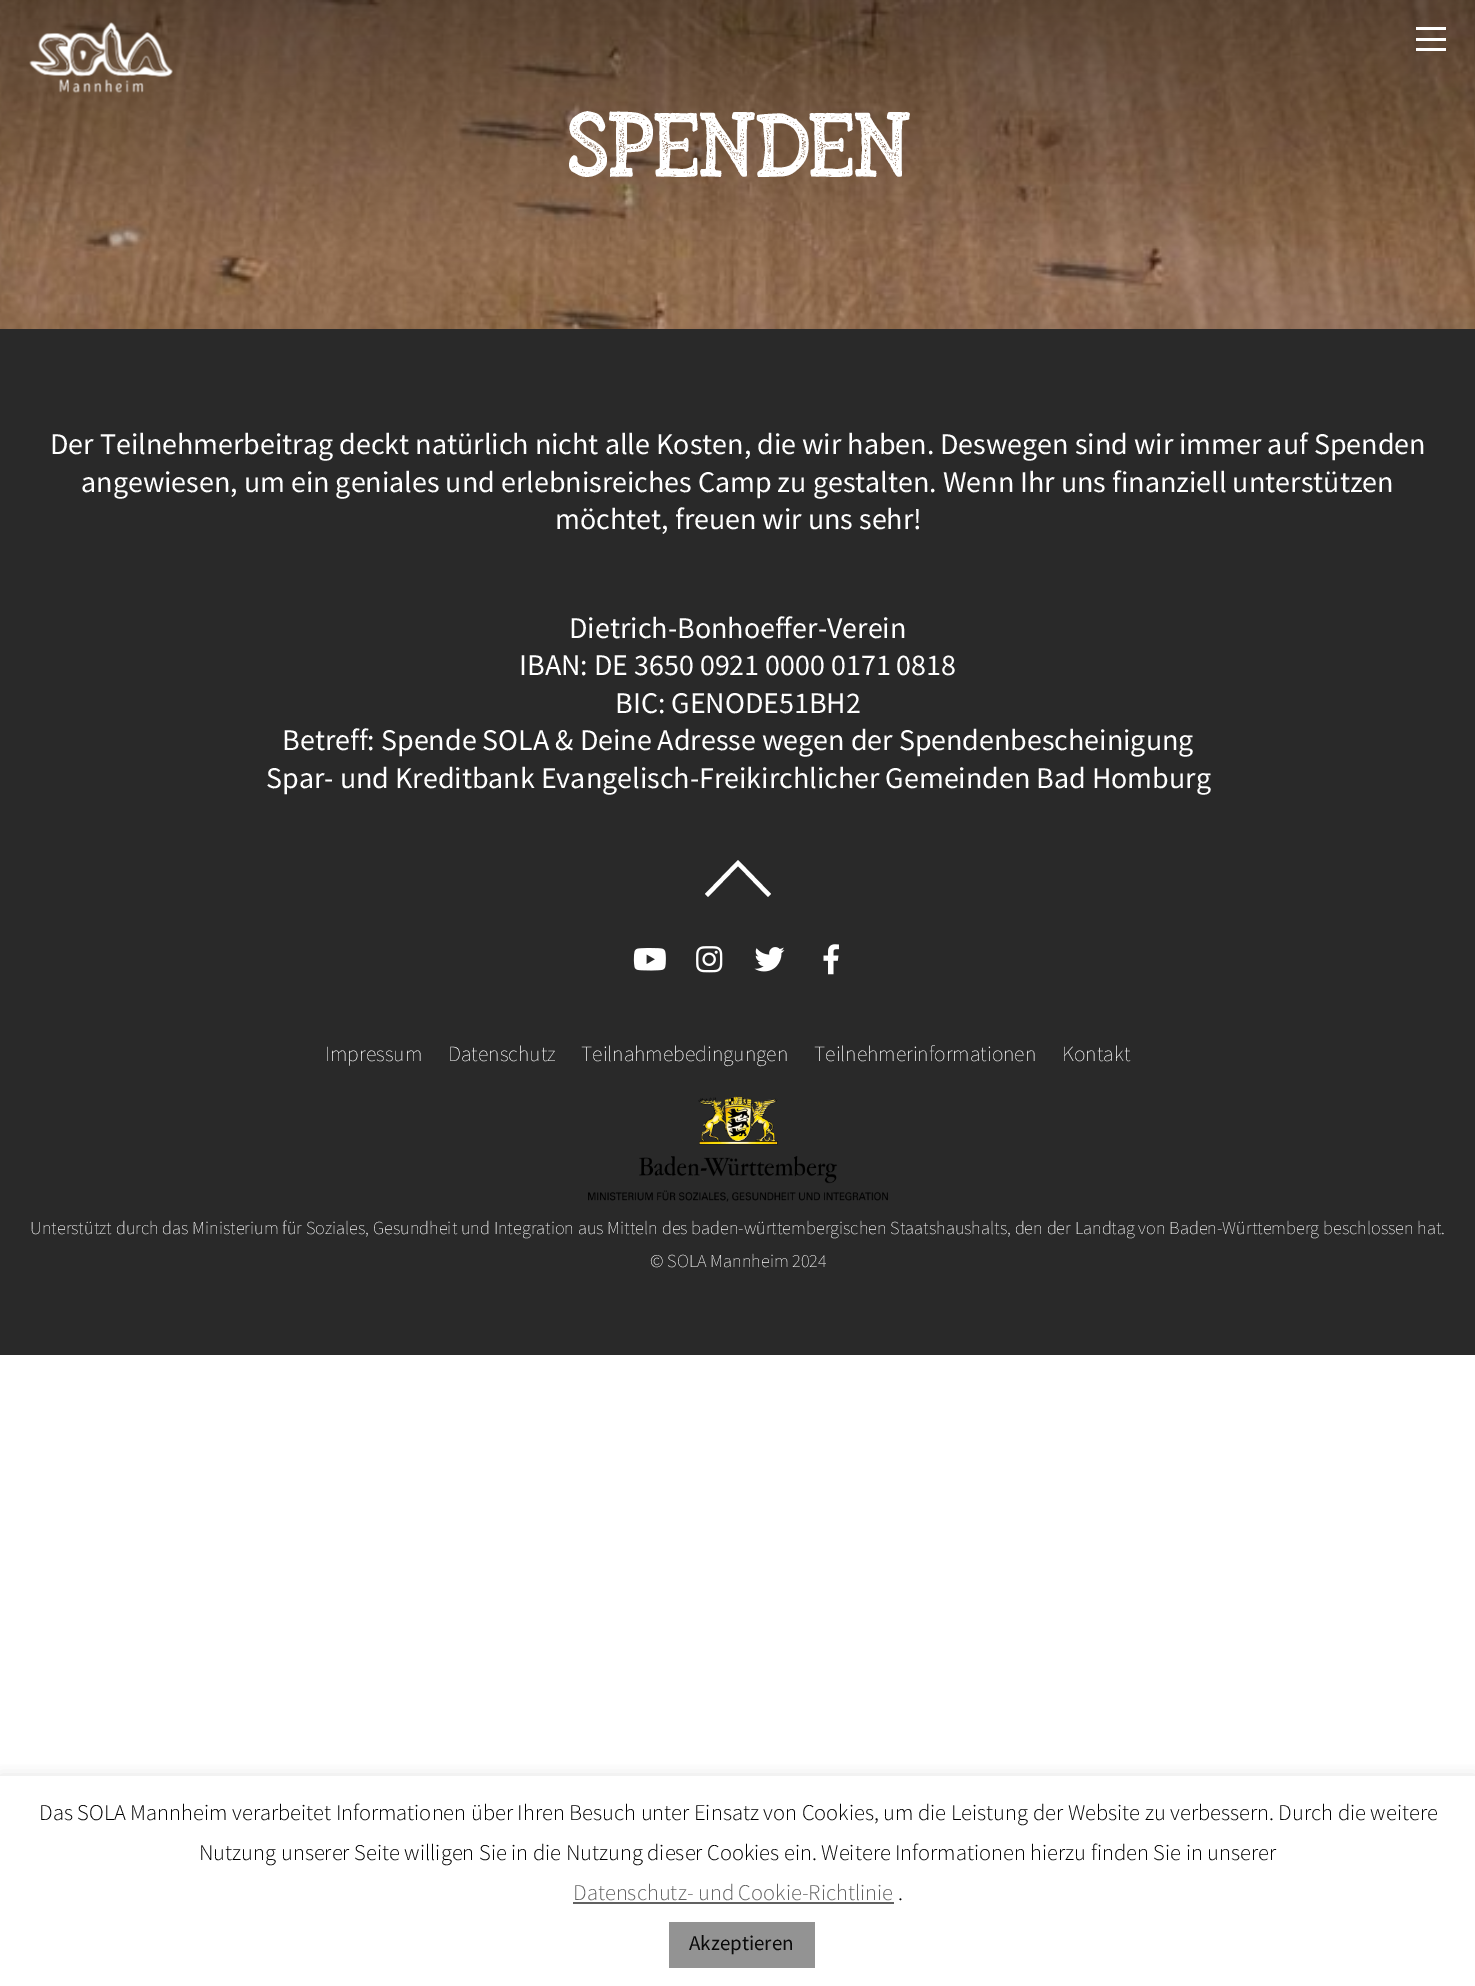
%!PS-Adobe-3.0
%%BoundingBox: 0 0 1475 1986
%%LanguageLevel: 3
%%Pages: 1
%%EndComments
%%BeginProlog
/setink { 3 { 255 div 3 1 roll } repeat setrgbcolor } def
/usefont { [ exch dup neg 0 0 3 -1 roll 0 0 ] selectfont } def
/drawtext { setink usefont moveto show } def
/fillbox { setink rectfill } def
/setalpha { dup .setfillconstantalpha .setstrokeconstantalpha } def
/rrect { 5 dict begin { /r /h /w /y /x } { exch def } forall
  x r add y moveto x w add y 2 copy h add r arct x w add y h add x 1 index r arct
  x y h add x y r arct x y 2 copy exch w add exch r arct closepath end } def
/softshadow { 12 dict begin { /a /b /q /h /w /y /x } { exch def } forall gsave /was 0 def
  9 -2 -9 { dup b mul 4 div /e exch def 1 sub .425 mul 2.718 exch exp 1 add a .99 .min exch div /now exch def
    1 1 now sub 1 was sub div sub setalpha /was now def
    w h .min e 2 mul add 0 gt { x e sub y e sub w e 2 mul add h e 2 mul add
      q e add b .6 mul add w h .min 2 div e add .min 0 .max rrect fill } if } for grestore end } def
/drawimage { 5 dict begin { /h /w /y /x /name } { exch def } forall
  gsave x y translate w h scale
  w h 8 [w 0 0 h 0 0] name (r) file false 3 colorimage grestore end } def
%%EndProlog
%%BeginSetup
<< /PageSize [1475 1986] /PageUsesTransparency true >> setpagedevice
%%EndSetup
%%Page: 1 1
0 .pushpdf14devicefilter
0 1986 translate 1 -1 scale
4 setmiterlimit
0 0 1475 1986 255 255 255 fillbox
(assets/img2.rgb) 0 0 1475 329 drawimage
(assets/img1.rgb) 29 22 144 71 drawimage
1416 48 30 3 255 255 255 fillbox
1416 27 30 3 255 255 255 fillbox
1416 38 30 3 255 255 255 fillbox
/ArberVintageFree-Regular 120 usefont
567 177 moveto -3.5 0 (Spenden) ashow
0 329 1475 1026 41 41 41 fillbox
(Der Teilnehmerbeitrag deckt natürlich nicht alle Kosten, die wir haben. Deswegen sind wir immer auf Spenden) 50 454 /Mada-Regular 30 255 255 255 drawtext
(angewiesen, um ein geniales und erlebnisreiches Camp zu gestalten. Wenn Ihr uns finanziell unterstützen) 81 492 /Mada-Regular 30 255 255 255 drawtext
(möchtet, freuen wir uns sehr!) 555 529 /Mada-Regular 30 255 255 255 drawtext
(Dietrich-Bonhoeffer-Verein) 569 638 /Mada-Regular 30 255 255 255 drawtext
(IBAN: DE 3650 0921 0000 0171 0818) 519 675 /Mada-Regular 30 255 255 255 drawtext
(BIC: GENODE51BH2) 615 713 /Mada-Regular 30 255 255 255 drawtext
(Betreff: Spende SOLA & Deine Adresse wegen der Spendenbescheinigung) 282 750 /Mada-Regular 30 255 255 255 drawtext
(Spar- und Kreditbank Evangelisch-Freikirchlicher Gemeinden Bad Homburg) 266 788 /Mada-Regular 30 255 255 255 drawtext
771 894 moveto 768 897 lineto 738 866 lineto 708 897 lineto 705 894 lineto 738 860 lineto closepath fill
(assets/img3.rgb) 633 948 33 23 drawimage
(assets/img4.rgb) 696 946 27 27 drawimage
(assets/img5.rgb) 754 947 31 25 drawimage
(assets/img6.rgb) 823 944 16 31 drawimage
(Impressum) 325 1061 /Mada-ExtraLight 21.6 255 255 255 drawtext
(Datenschutz) 448 1061 /Mada-ExtraLight 21.6 255 255 255 drawtext
(Teilnahmebedingungen) 581 1061 /Mada-ExtraLight 21.6 255 255 255 drawtext
(Teilnehmerinformationen) 814 1061 /Mada-ExtraLight 21.6 255 255 255 drawtext
(Kontakt) 1062 1061 /Mada-ExtraLight 21.6 255 255 255 drawtext
(assets/img7.rgb) 588 1096 300 106 drawimage
(Unterstützt durch das Ministerium für Soziales, Gesundheit und Integration aus Mitteln des baden-württembergischen Staatshaushalts, den der Landtag von Baden-Württemberg beschlossen hat.) 30 1234 /Mada-ExtraLight 18.35 255 255 255 drawtext
(© SOLA Mannheim 2024) 650 1267 /Mada-ExtraLight 18.35 255 255 255 drawtext
gsave
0 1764 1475 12 rectclip
172 171 171 setink
0 1775 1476 210 0 7.5 0.3 softshadow
grestore
(Das SOLA Mannheim verarbeitet Informationen über Ihren Besuch unter Einsatz von Cookies, um die Leistung der Website zu verbessern. Durch die weitere) 39 1820 /Mada-Light 22.5 0 0 0 drawtext
(Nutzung unserer Seite willigen Sie in die Nutzung dieser Cookies ein. Weitere Informationen hierzu finden Sie in unserer) 199 1860 /Mada-Light 22.5 0 0 0 drawtext
(Datenschutz- und Cookie-Richtlinie) 573 1900 /Mada-Light 22.5 97 97 97 drawtext
573 1902 321 2 97 97 97 fillbox
(.) 898 1900 /Mada-Light 22.5 0 0 0 drawtext
669 1922 146 46 147 147 147 fillbox
(Akzeptieren) 689 1950 /Mada-Regular 21 10 10 10 drawtext
.poppdf14devicefilter showpage
%%EOF
